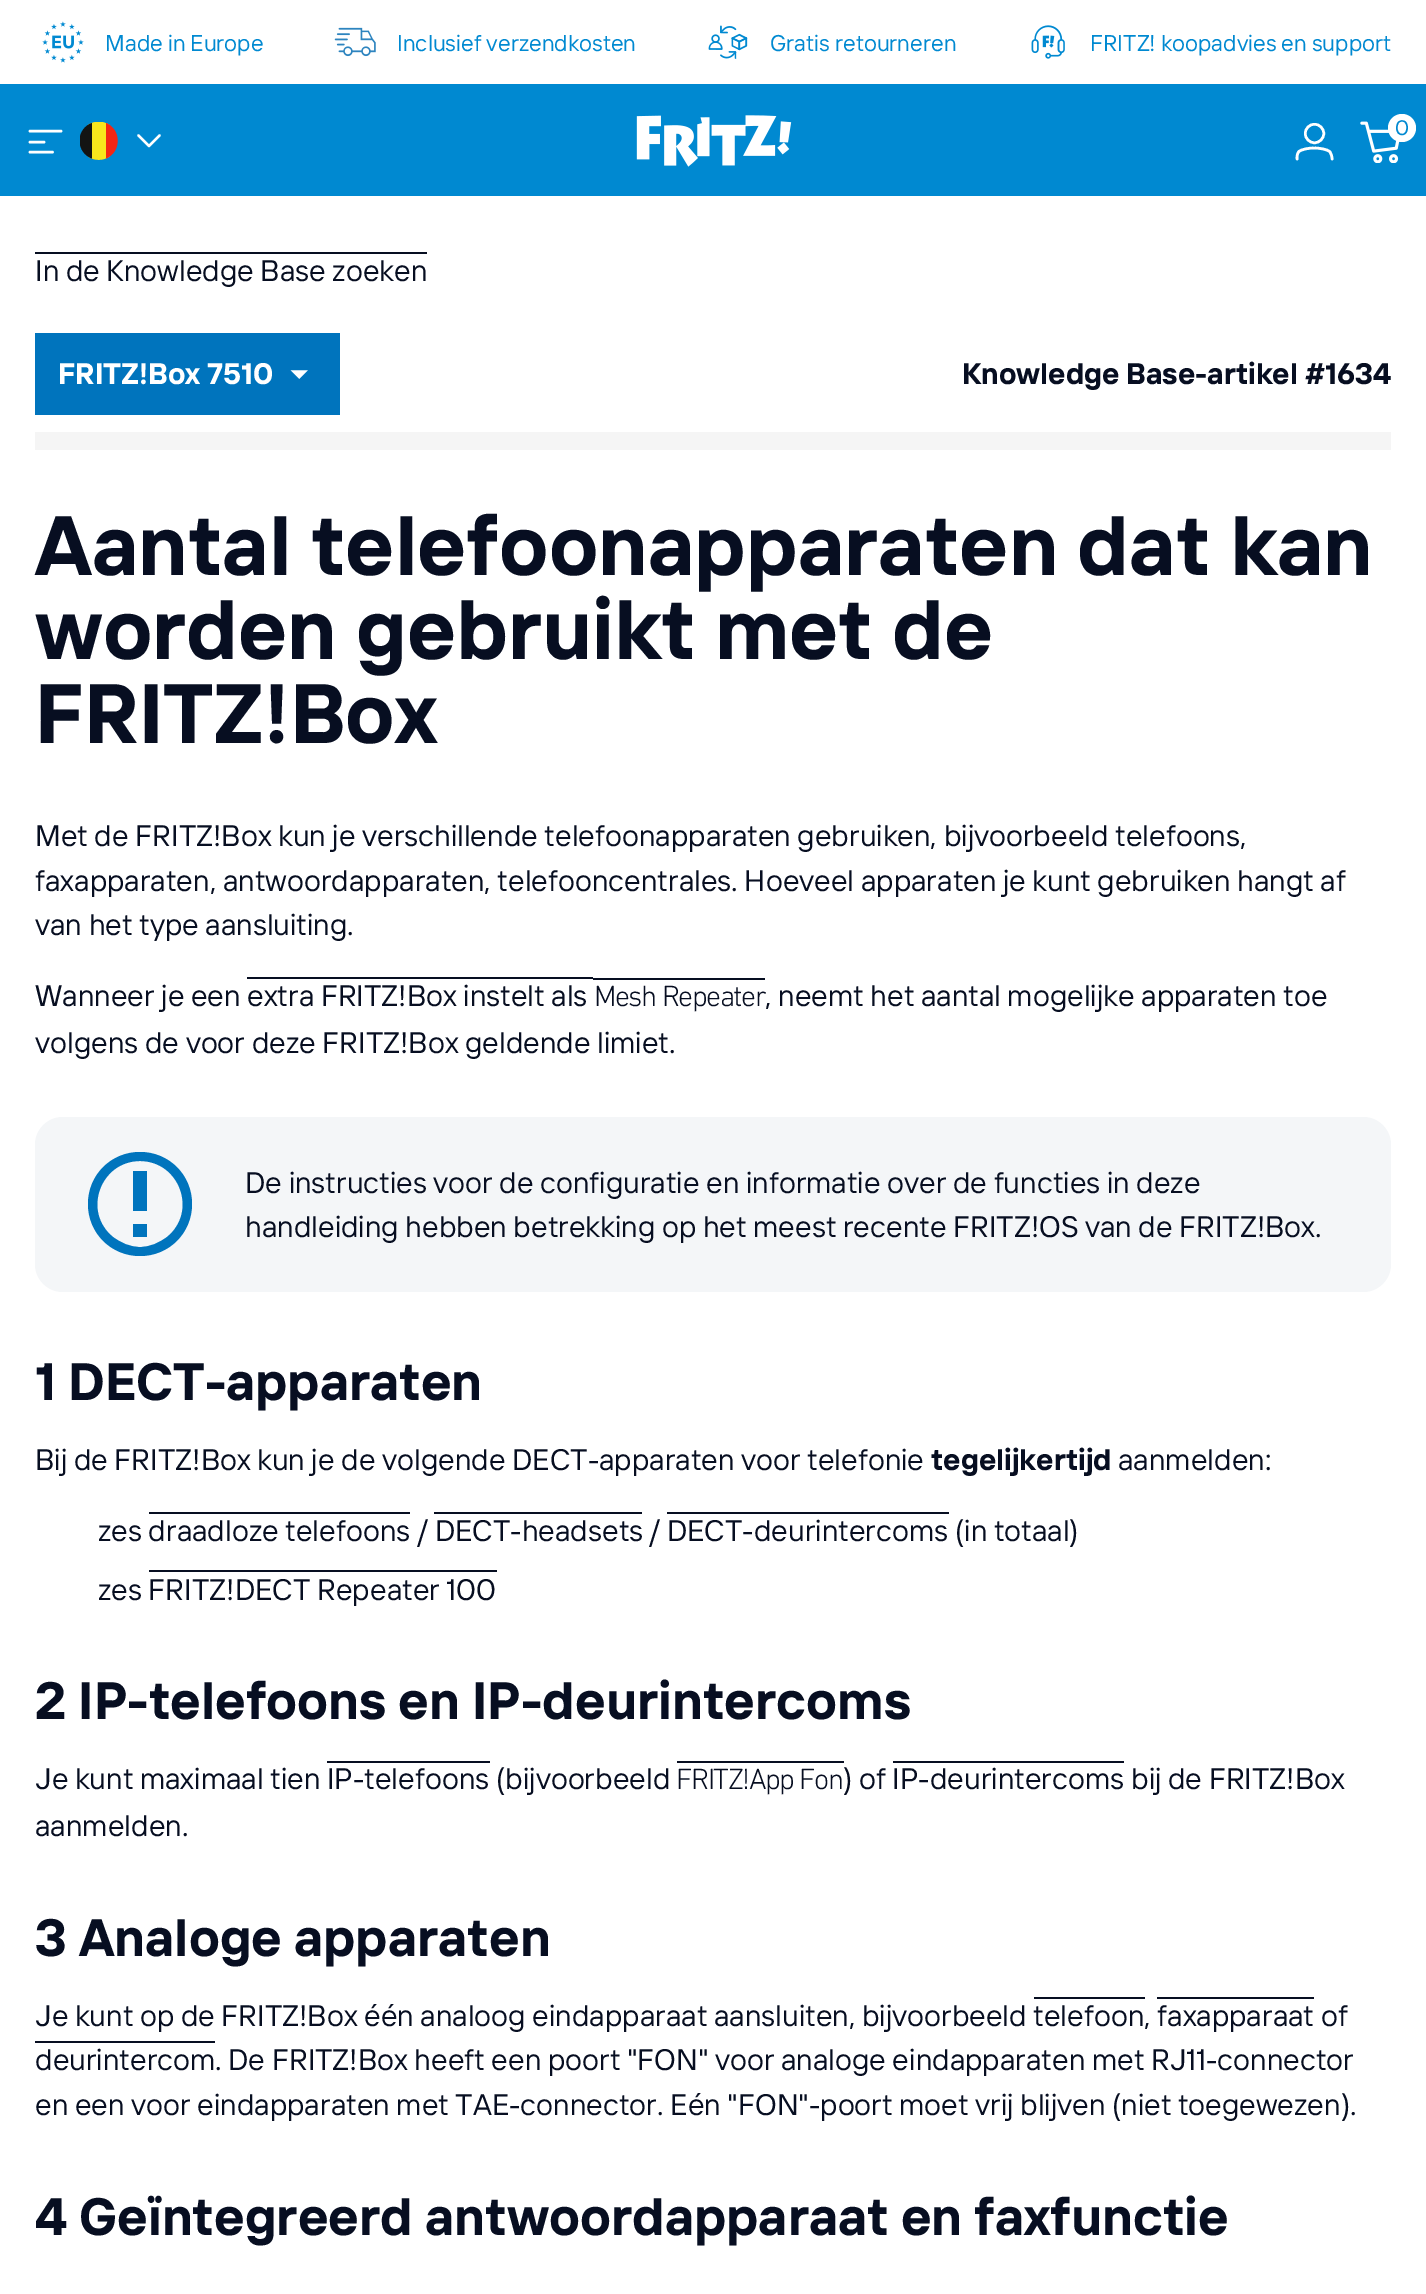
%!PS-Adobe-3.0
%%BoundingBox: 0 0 1426 2294
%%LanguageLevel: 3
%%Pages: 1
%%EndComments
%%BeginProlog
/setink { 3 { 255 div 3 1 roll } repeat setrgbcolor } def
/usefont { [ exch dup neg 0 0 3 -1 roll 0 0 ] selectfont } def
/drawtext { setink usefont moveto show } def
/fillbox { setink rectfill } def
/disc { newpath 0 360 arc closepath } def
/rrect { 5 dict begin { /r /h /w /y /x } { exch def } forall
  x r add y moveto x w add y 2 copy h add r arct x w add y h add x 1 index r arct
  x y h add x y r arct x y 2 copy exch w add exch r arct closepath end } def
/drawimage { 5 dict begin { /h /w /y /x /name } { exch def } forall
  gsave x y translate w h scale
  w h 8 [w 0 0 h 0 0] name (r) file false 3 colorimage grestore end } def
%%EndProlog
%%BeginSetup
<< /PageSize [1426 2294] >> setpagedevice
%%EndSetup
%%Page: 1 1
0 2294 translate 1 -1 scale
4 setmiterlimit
0 0 1426 2294 255 255 255 fillbox
(assets/img1.rgb) 42 21 42 42 drawimage
(Made in Europe) 105 51 /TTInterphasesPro-Regular 22.75 0 137 209 drawtext
(assets/img2.rgb) 334 27 42 30 drawimage
(Inclusief verzendkosten) 397 51 /TTInterphasesPro-Regular 22.75 0 137 209 drawtext
(assets/img3.rgb) 708 25 40 34 drawimage
(Gratis retourneren) 770 51 /TTInterphasesPro-Regular 22.75 0 137 209 drawtext
(assets/img4.rgb) 1031 25 34 34 drawimage
(FRITZ! koopadvies en support) 1090 51 /TTInterphasesPro-Regular 22.75 0 137 209 drawtext
0 84 1426 112 0 137 209 fillbox
255 255 255 setink
2.6 setlinewidth
1 setlinecap
30 131 moveto 61 131 lineto 30 142 moveto 44 142 lineto 30 152 moveto 52.5 152 lineto stroke
gsave
80 122 38 38 rectclip
248 231 28 setink
88 156.5 moveto 88 125 lineto 94.5 120.5 103.5 120.5 110 125.5 curveto 110 156 lineto 103.5 161 94.5 161 88 156.5 curveto closepath fill
grestore
243 38 20 setink
106 158.5 moveto 106 123 lineto 121.5 129.5 121.5 152 106 158.5 curveto closepath fill
gsave
80 122 38 38 rectclip
19 20 19 setink
79.5 140.5 moveto 79.5 133 84.5 125.5 92 123 curveto 92 158.5 lineto 84.5 156 79.5 148.5 79.5 140.5 curveto closepath fill
grestore
255 255 255 setink
2.4 setlinewidth
1 setlinejoin
138.5 135.5 moveto 149 146 lineto 159.5 135.5 lineto stroke
(assets/img5.rgb) 636 115 156 52 drawimage
2.5 setlinewidth
0 setlinecap
0 setlinejoin
1314.5 133.5 9.25 disc stroke
2.6 setlinewidth
1 setlinecap
1314 148 moveto 1318.5 148 1327.5 149 1330 152 curveto 1331.5 154.5 1332 156.5 1332 159 curveto 1314 148 moveto 1310 148 1301 149 1298.5 152 curveto 1297 154.5 1297 156.5 1297 159 curveto stroke
(assets/img6.rgb) 1360 121 40 42 drawimage
1402 128 14 disc fill
(0) 1395 135 /TTInterphasesPro-Regular 21 0 137 209 drawtext
(In de Knowledge Base zoeken) 35 281 /TTInterphasesPro-Regular 29.75 7 14 33 drawtext
35 252 392 2 7 14 33 fillbox
35 432 1356 18 245 245 245 fillbox
35 333 305 82 0 116 189 fillbox
(FRITZ!Box 7510) 58 384 /TTInterphasesPro-Bold 29.75 255 255 255 drawtext
(assets/img7.rgb) 290 370 18 9 drawimage
(Knowledge Base-artikel #1634) 962 384 /TTInterphasesPro-Bold 29.75 7 14 33 drawtext
(Aantal telefoonapparaten dat kan) 35 575 /TTInterphasesPro-Bold 84 7 14 33 drawtext
(worden gebruikt met de) 35 659 /TTInterphasesPro-Bold 84 7 14 33 drawtext
(FRITZ!Box) 35 743 /TTInterphasesPro-Bold 84 7 14 33 drawtext
(Met de FRITZ!Box kun je verschillende telefoonapparaten gebruiken, bijvoorbeeld telefoons,) 35 846 /TTInterphasesPro-Regular 29.75 7 14 33 drawtext
(faxapparaten, antwoordapparaten, telefooncentrales. Hoeveel apparaten je kunt gebruiken hangt af) 35 891 /TTInterphasesPro-Regular 29.75 7 14 33 drawtext
(van het type aansluiting.) 35 935 /TTInterphasesPro-Regular 29.75 7 14 33 drawtext
(Wanneer je een extra FRITZ!Box instelt als) 35 1006 /TTInterphasesPro-Regular 29.75 7 14 33 drawtext
(, neemt het aantal mogelijke apparaten toe) 765 1006 /TTInterphasesPro-Regular 29.75 7 14 33 drawtext
/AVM-Light 29.75 usefont
594 1006 moveto -1.5 0 (Mesh Repeater) ashow
247 977 346 2 7 14 33 fillbox
593 978 172 2 7 14 33 fillbox
(volgens de voor deze FRITZ!Box geldende limiet.) 35 1053 /TTInterphasesPro-Regular 29.75 7 14 33 drawtext
244 246 248 setink
35 1117 1356 175 28 rrect fill
0 116 189 setink
140 1161 moveto 100 1161 82 1212 113 1237 curveto 121 1243 130 1247 140 1247 curveto 150 1247 159 1243 167 1237 curveto 198 1212 180 1161 140 1161 curveto closepath 140 1152 moveto 169 1152 192 1175 192 1204 curveto 192 1233 169 1256 140 1256 curveto 111 1256 88 1233 88 1204 curveto 88 1175 111 1152 140 1152 curveto closepath 133 1224 moveto 147 1224 lineto 147 1237 lineto 133 1237 lineto closepath 133 1171 moveto 147 1171 lineto 147 1211 lineto 133 1211 lineto closepath fill
(De instructies voor de configuratie en informatie over de functies in deze) 245 1193 /TTInterphasesPro-Regular 29.75 7 14 33 drawtext
(handleiding hebben betrekking op het meest recente FRITZ!OS van de FRITZ!Box.) 245 1237 /TTInterphasesPro-Regular 29.75 7 14 33 drawtext
(1 DECT-apparaten) 35 1400 /TTInterphasesPro-Bold 52.5 7 14 33 drawtext
(Bij de FRITZ!Box kun je de volgende DECT-apparaten voor telefonie) 35 1470 /TTInterphasesPro-Regular 29.75 7 14 33 drawtext
(tegelijkertijd) 931 1470 /TTInterphasesPro-Bold 29.75 7 14 33 drawtext
(aanmelden:) 1118 1470 /TTInterphasesPro-Regular 29.75 7 14 33 drawtext
149 1512 261 2 7 14 33 fillbox
434 1512 208 2 7 14 33 fillbox
667 1512 282 2 7 14 33 fillbox
(zes draadloze telefoons) 98 1541 /TTInterphasesPro-Regular 29.75 7 14 33 drawtext
(/ DECT-headsets) 417 1541 /TTInterphasesPro-Regular 29.75 7 14 33 drawtext
(/ DECT-deurintercoms) 649 1541 /TTInterphasesPro-Regular 29.75 7 14 33 drawtext
(\(in totaal\)) 955 1541 /TTInterphasesPro-Regular 29.75 7 14 33 drawtext
149 1570 348 2 7 14 33 fillbox
(zes FRITZ!DECT Repeater 100) 98 1600 /TTInterphasesPro-Regular 29.75 7 14 33 drawtext
(2 IP-telefoons en IP-deurintercoms) 35 1719 /TTInterphasesPro-Bold 52.5 7 14 33 drawtext
327 1761 163 2 7 14 33 fillbox
893 1761 231 2 7 14 33 fillbox
(Je kunt maximaal tien IP-telefoons) 35 1789 /TTInterphasesPro-Regular 29.75 7 14 33 drawtext
(\(bijvoorbeeld) 496 1789 /TTInterphasesPro-Regular 29.75 7 14 33 drawtext
/AVM-Light 29.75 usefont
676 1789 moveto -1.5 0 (FRITZ!App Fon) ashow
677 1761 167 2 7 14 33 fillbox
(\) of IP-deurintercoms) 843 1789 /TTInterphasesPro-Regular 29.75 7 14 33 drawtext
(bij de FRITZ!Box) 1131 1789 /TTInterphasesPro-Regular 29.75 7 14 33 drawtext
(aanmelden.) 35 1836 /TTInterphasesPro-Regular 29.75 7 14 33 drawtext
(3 Analoge apparaten) 35 1956 /TTInterphasesPro-Bold 52.5 7 14 33 drawtext
1034 1997 111 2 7 14 33 fillbox
1157 1997 157 2 7 14 33 fillbox
(Je kunt op de FRITZ!Box één analoog eindapparaat aansluiten, bijvoorbeeld telefoon) 35 2026 /TTInterphasesPro-Regular 29.75 7 14 33 drawtext
(, faxapparaat) 1144 2026 /TTInterphasesPro-Regular 29.75 7 14 33 drawtext
(of) 1321 2026 /TTInterphasesPro-Regular 29.75 7 14 33 drawtext
(deurintercom) 35 2070 /TTInterphasesPro-Regular 29.75 7 14 33 drawtext
35 2041 180 2 7 14 33 fillbox
(. De FRITZ!Box heeft een poort "FON" voor analoge eindapparaten met RJ11-connector) 215 2070 /TTInterphasesPro-Regular 29.75 7 14 33 drawtext
(en een voor eindapparaten met TAE-connector. Eén "FON"-poort moet vrij blijven \(niet toegewezen\).) 35 2115 /TTInterphasesPro-Regular 29.75 7 14 33 drawtext
(4 Geïntegreerd antwoordapparaat en faxfunctie) 35 2235 /TTInterphasesPro-Bold 52.5 7 14 33 drawtext
showpage
%%EOF
